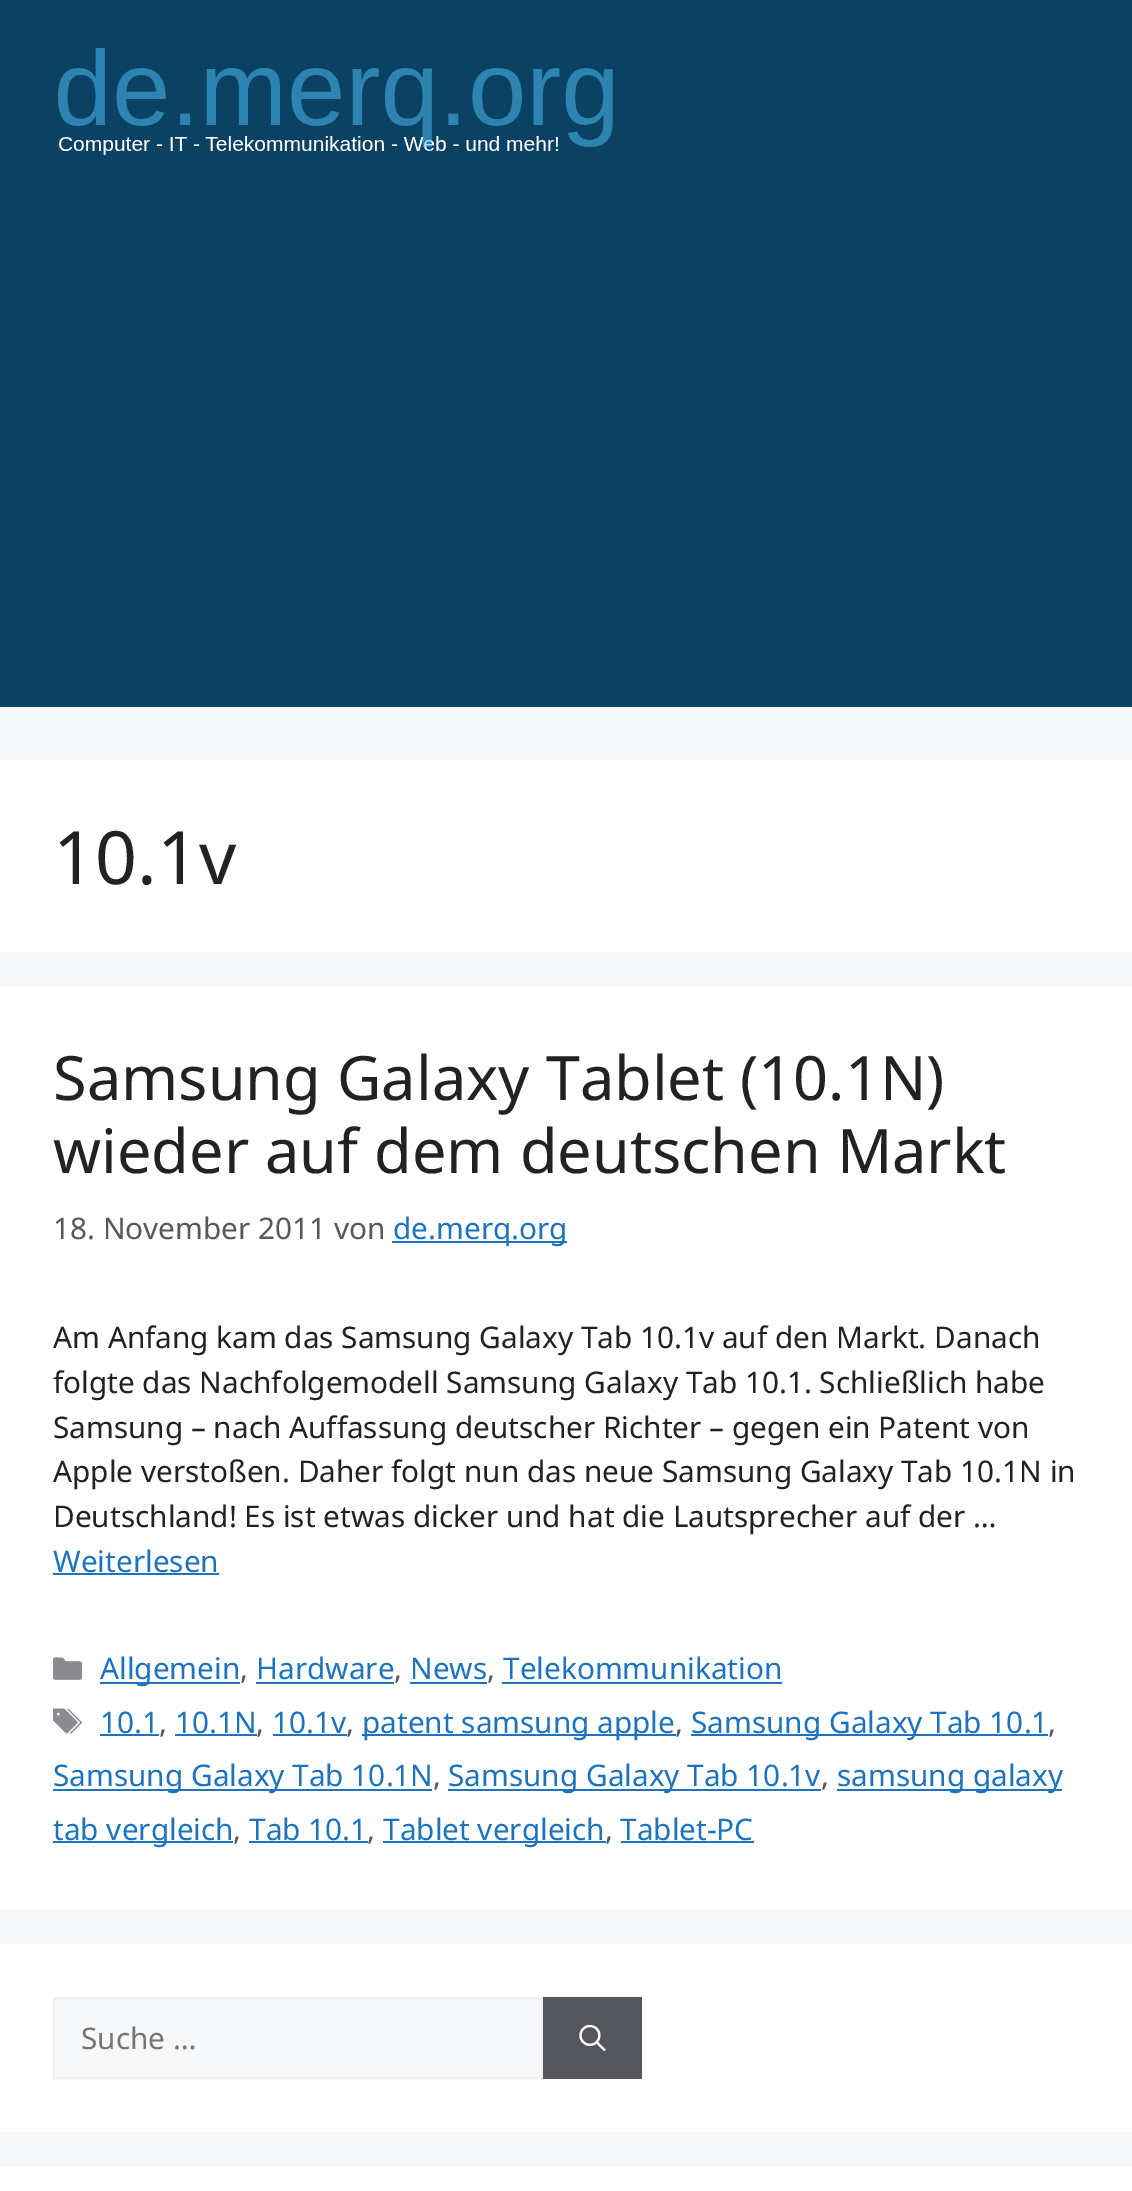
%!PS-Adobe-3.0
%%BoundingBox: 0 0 1132 2191
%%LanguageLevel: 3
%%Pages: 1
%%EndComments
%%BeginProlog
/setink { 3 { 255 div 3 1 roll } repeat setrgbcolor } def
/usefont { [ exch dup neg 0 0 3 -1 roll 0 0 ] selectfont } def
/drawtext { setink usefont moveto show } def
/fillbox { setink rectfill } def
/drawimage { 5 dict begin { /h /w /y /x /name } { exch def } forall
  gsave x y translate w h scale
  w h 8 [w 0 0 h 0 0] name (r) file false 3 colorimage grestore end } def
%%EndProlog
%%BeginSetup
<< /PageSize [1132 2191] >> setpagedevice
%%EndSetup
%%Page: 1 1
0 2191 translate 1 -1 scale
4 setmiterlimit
0 0 1132 2191 247 248 249 fillbox
0 0 1132 707 11 65 99 fillbox
(assets/img1.rgb) 57 48 556 107 drawimage
0 760 1132 192 255 255 255 fillbox
(10.1v) 53 884 /NotoSans-Regular 73.5 34 34 34 drawtext
0 987 1132 922 255 255 255 fillbox
(Samsung Galaxy Tablet \(10.1N\)) 53 1100 /NotoSans-Regular 61.25 34 34 34 drawtext
(wieder auf dem deutschen Markt) 53 1173 /NotoSans-Regular 61.25 34 34 34 drawtext
(18. November 2011 von) 53 1239 /NotoSans-Regular 29.75 87 87 96 drawtext
392 1241 175 2 30 115 190 fillbox
(de.merq.org) 393 1239 /NotoSans-Regular 29.75 30 115 190 drawtext
(Am Anfang kam das Samsung Galaxy Tab 10.1v auf den Markt. Danach) 53 1348 /NotoSans-Regular 29.75 34 34 34 drawtext
(folgte das Nachfolgemodell Samsung Galaxy Tab 10.1. Schließlich habe) 53 1393 /NotoSans-Regular 29.75 34 34 34 drawtext
(Samsung – nach Auffassung deutscher Richter – gegen ein Patent von) 53 1438 /NotoSans-Regular 29.75 34 34 34 drawtext
(Apple verstoßen. Daher folgt nun das neue Samsung Galaxy Tab 10.1N in) 53 1482 /NotoSans-Regular 29.75 34 34 34 drawtext
(Deutschland! Es ist etwas dicker und hat die Lautsprecher auf der …) 53 1527 /NotoSans-Regular 29.75 34 34 34 drawtext
(Weiterlesen) 53 1572 /NotoSans-Regular 29.75 30 115 190 drawtext
53 1573 166 2 30 115 190 fillbox
(assets/img2.rgb) 53 1657 29 23 drawimage
100 1682 140 2 30 115 190 fillbox
(Allgemein) 100 1679 /NotoSans-Regular 29.75 30 115 190 drawtext
(,) 240 1679 /NotoSans-Regular 29.75 87 87 96 drawtext
(Hardware) 256 1679 /NotoSans-Regular 29.75 30 115 190 drawtext
256 1682 138 2 30 115 190 fillbox
(,) 394 1679 /NotoSans-Regular 29.75 87 87 96 drawtext
(News) 410 1679 /NotoSans-Regular 29.75 30 115 190 drawtext
410 1682 77 2 30 115 190 fillbox
(,) 487 1679 /NotoSans-Regular 29.75 87 87 96 drawtext
(Telekommunikation) 503 1679 /NotoSans-Regular 29.75 30 115 190 drawtext
502 1682 280 2 30 115 190 fillbox
(assets/img3.rgb) 53 1708 29 26 drawimage
(10.1) 100 1733 /NotoSans-Regular 29.75 30 115 190 drawtext
100 1734 59 2 30 115 190 fillbox
(,) 159 1733 /NotoSans-Regular 29.75 87 87 96 drawtext
(10.1N) 175 1733 /NotoSans-Regular 29.75 30 115 190 drawtext
175 1734 82 2 30 115 190 fillbox
(,) 256 1733 /NotoSans-Regular 29.75 87 87 96 drawtext
(10.1v) 272 1733 /NotoSans-Regular 29.75 30 115 190 drawtext
273 1734 74 2 30 115 190 fillbox
(,) 346 1733 /NotoSans-Regular 29.75 87 87 96 drawtext
362 1734 314 2 30 115 190 fillbox
(patent samsung apple) 362 1733 /NotoSans-Regular 29.75 30 115 190 drawtext
(,) 675 1733 /NotoSans-Regular 29.75 87 87 96 drawtext
691 1734 357 2 30 115 190 fillbox
(Samsung Galaxy Tab 10.1) 691 1733 /NotoSans-Regular 29.75 30 115 190 drawtext
(,) 1048 1733 /NotoSans-Regular 29.75 87 87 96 drawtext
53 1789 379 2 30 115 190 fillbox
(Samsung Galaxy Tab 10.1N) 53 1786 /NotoSans-Regular 29.75 30 115 190 drawtext
(,) 433 1786 /NotoSans-Regular 29.75 87 87 96 drawtext
448 1789 373 2 30 115 190 fillbox
(Samsung Galaxy Tab 10.1v) 448 1786 /NotoSans-Regular 29.75 30 115 190 drawtext
(,) 821 1786 /NotoSans-Regular 29.75 87 87 96 drawtext
837 1789 225 2 30 115 190 fillbox
(samsung galaxy) 837 1786 /NotoSans-Regular 29.75 30 115 190 drawtext
53 1841 180 2 30 115 190 fillbox
(tab vergleich) 53 1840 /NotoSans-Regular 29.75 30 115 190 drawtext
(,) 233 1840 /NotoSans-Regular 29.75 87 87 96 drawtext
(Tab 10.1) 249 1840 /NotoSans-Regular 29.75 30 115 190 drawtext
249 1841 119 2 30 115 190 fillbox
(,) 367 1840 /NotoSans-Regular 29.75 87 87 96 drawtext
383 1841 223 2 30 115 190 fillbox
(Tablet vergleich) 383 1840 /NotoSans-Regular 29.75 30 115 190 drawtext
(,) 605 1840 /NotoSans-Regular 29.75 87 87 96 drawtext
(Tablet-PC) 620 1840 /NotoSans-Regular 29.75 30 115 190 drawtext
621 1841 133 2 30 115 190 fillbox
0 1944 1132 188 255 255 255 fillbox
247 248 249 setink
54 1998 moveto 542 1998 lineto 542 2078 lineto 54 2078 lineto closepath gsave fill grestore
240 240 240 setink
2 setlinewidth
stroke
(Suche …) 81 2049 /NotoSans-Regular 29.75 117 117 117 drawtext
543 1997 99 82 85 85 94 fillbox
(assets/img4.rgb) 579 2025 27 26 drawimage
0 2167 1132 24 255 255 255 fillbox
showpage
%%EOF
